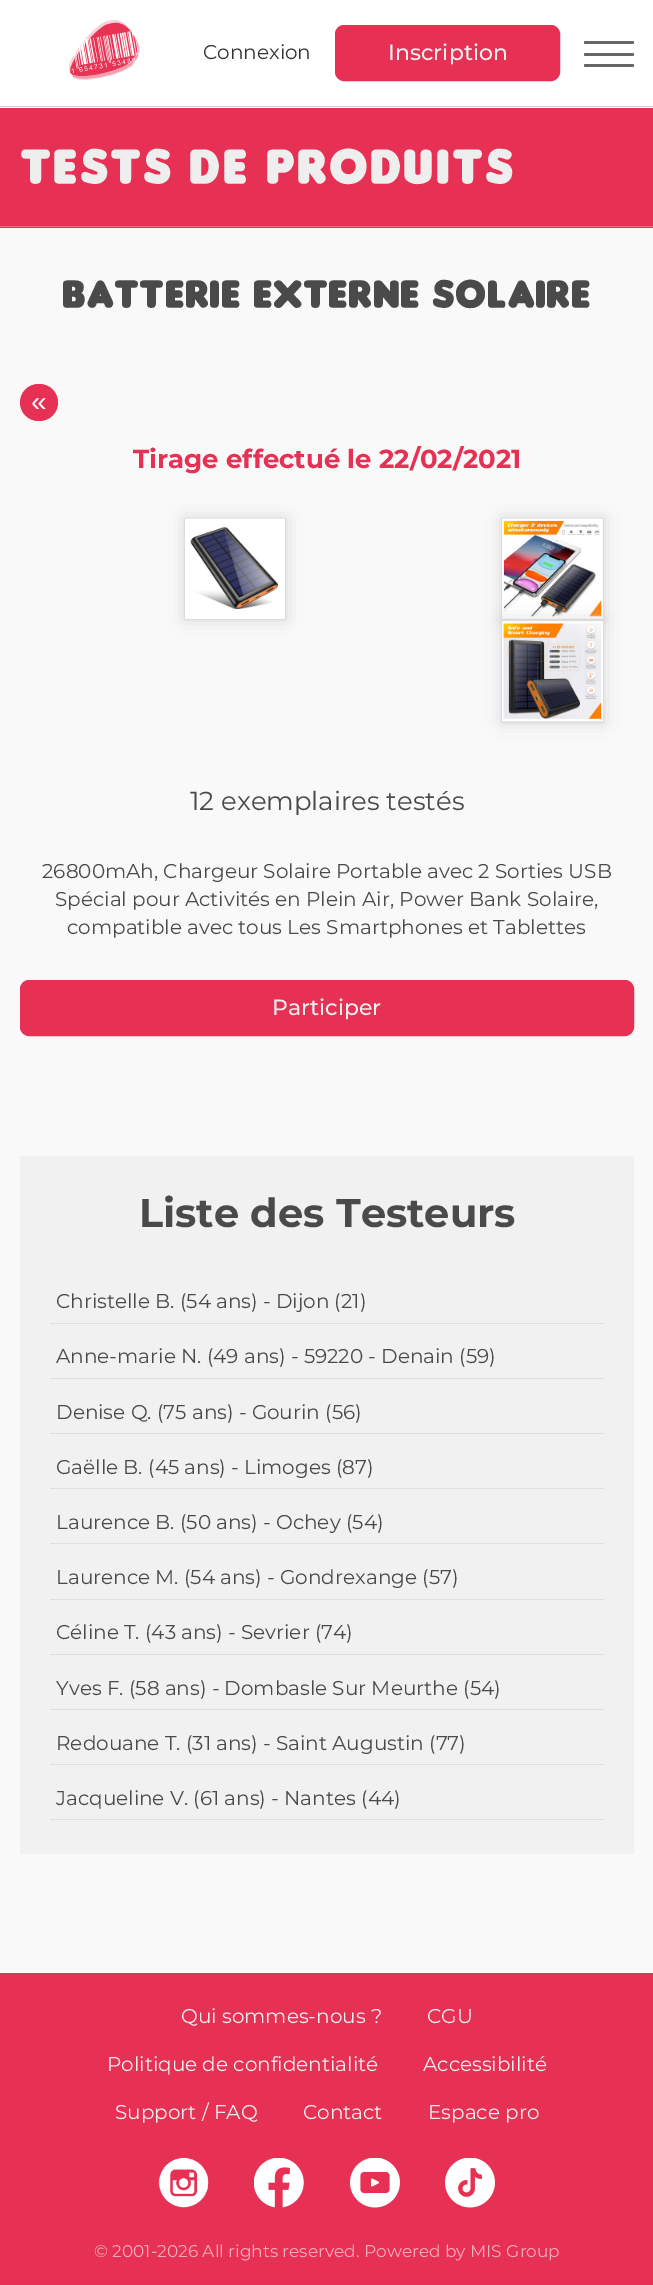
%!PS-Adobe-3.0
%%BoundingBox: 0 0 653 2285
%%LanguageLevel: 3
%%Pages: 1
%%EndComments
%%BeginProlog
/setink { 3 { 255 div 3 1 roll } repeat setrgbcolor } def
/usefont { [ exch dup neg 0 0 3 -1 roll 0 0 ] selectfont } def
/drawtext { setink usefont moveto show } def
/fillbox { setink rectfill } def
/setalpha { dup .setfillconstantalpha .setstrokeconstantalpha } def
/rrect { 5 dict begin { /r /h /w /y /x } { exch def } forall
  x r add y moveto x w add y 2 copy h add r arct x w add y h add x 1 index r arct
  x y h add x y r arct x y 2 copy exch w add exch r arct closepath end } def
/softshadow { 12 dict begin { /a /b /q /h /w /y /x } { exch def } forall gsave /was 0 def
  9 -2 -9 { dup b mul 4 div /e exch def 1 sub .425 mul 2.718 exch exp 1 add a .99 .min exch div /now exch def
    1 1 now sub 1 was sub div sub setalpha /was now def
    w h .min e 2 mul add 0 gt { x e sub y e sub w e 2 mul add h e 2 mul add
      q e add b .6 mul add w h .min 2 div e add .min 0 .max rrect fill } if } for grestore end } def
/drawimage { 5 dict begin { /h /w /y /x /name } { exch def } forall
  gsave x y translate w h scale
  w h 8 [w 0 0 h 0 0] name (r) file false 3 colorimage grestore end } def
%%EndProlog
%%BeginSetup
<< /PageSize [653 2285] /PageUsesTransparency true >> setpagedevice
%%EndSetup
%%Page: 1 1
0 .pushpdf14devicefilter
0 2285 translate 1 -1 scale
4 setmiterlimit
0 0 653 2285 249 249 249 fillbox
0 0 653 108 255 255 255 fillbox
0 106 653 1 204 204 204 fillbox
(assets/img1.rgb) 69 20 71 60 drawimage
(Connexion) 203 59 /Montserrat-Regular 20 51 51 51 drawtext
230 48 84 setink
336.5 26.5 222 53 7.5 rrect gsave fill grestore
3 setlinewidth
stroke
(Inscription) 388 60 /Montserrat-Medium 22 238 238 238 drawtext
102 102 102 setink
584 41 50 3 1.5 rrect fill
584 53 50 3 1.5 rrect fill
584 64 50 3 1.5 rrect fill
0 108 653 120 230 48 84 fillbox
0 226 653 1 238 110 135 fillbox
/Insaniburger-Bold 50 usefont
238 238 238 setink
20 184 moveto 4 0 (Tests de Produits) ashow
/Insaniburger-Bold 40 usefont
74 74 74 setink
62 308 moveto 2 0 (Batterie Externe Solaire) ashow
230 48 84 setink
20 384 38 37 18.5 rrect fill
(«) 31 411 /LiberationSans-Regular 28 255 255 255 drawtext
(Tirage effectué le 22/02/2021) 133 468 /Montserrat-Bold 26 230 48 84 drawtext
206 206 206 setink
184 518 102 102 0 8 0.75 softshadow
221 221 221 setink
1 setlinewidth
184.5 518.5 101 101 rectstroke
(assets/img2.rgb) 185 518 100 101 drawimage
206 206 206 setink
501 518 103 102 0 8 0.75 softshadow
221 221 221 setink
501.5 518.5 102 101 rectstroke
(assets/img3.rgb) 502 518 101 101 drawimage
206 206 206 setink
501 620 103 103 0 8 0.75 softshadow
221 221 221 setink
501.5 620.5 102 102 rectstroke
(assets/img4.rgb) 502 621 101 100 drawimage
(12 exemplaires testés) 190 810 /Montserrat-Regular 26 74 74 74 drawtext
(26800mAh, Chargeur Solaire Portable avec 2 Sorties USB) 42 878 /Montserrat-Regular 20 74 74 74 drawtext
(Spécial pour Activités en Plein Air, Power Bank Solaire,) 55 906 /Montserrat-Regular 20 74 74 74 drawtext
(compatible avec tous Les Smartphones et Tablettes) 67 934 /Montserrat-Regular 20 74 74 74 drawtext
230 48 84 setink
21.5 981.5 611 53 7.5 rrect gsave fill grestore
3 setlinewidth
stroke
(Participer) 272 1015 /Montserrat-Medium 22 238 238 238 drawtext
20 1156 614 698 241 241 241 fillbox
(Liste des Testeurs) 139 1227 /Montserrat-Bold 40 74 74 74 drawtext
50 1323 554 1 222 222 222 fillbox
(Christelle B. \(54 ans\) - Dijon \(21\)) 56 1308 /Montserrat-Regular 20 74 74 74 drawtext
50 1378 554 1 222 222 222 fillbox
(Anne-marie N. \(49 ans\) - 59220 - Denain \(59\)) 56 1363 /Montserrat-Regular 20 74 74 74 drawtext
50 1433 554 1 222 222 222 fillbox
(Denise Q. \(75 ans\) - Gourin \(56\)) 56 1419 /Montserrat-Regular 20 74 74 74 drawtext
50 1488 554 1 222 222 222 fillbox
(Gaëlle B. \(45 ans\) - Limoges \(87\)) 56 1474 /Montserrat-Regular 20 74 74 74 drawtext
50 1543 554 1 222 222 222 fillbox
(Laurence B. \(50 ans\) - Ochey \(54\)) 56 1529 /Montserrat-Regular 20 74 74 74 drawtext
50 1599 554 1 222 222 222 fillbox
(Laurence M. \(54 ans\) - Gondrexange \(57\)) 56 1584 /Montserrat-Regular 20 74 74 74 drawtext
50 1654 554 1 222 222 222 fillbox
(Céline T. \(43 ans\) - Sevrier \(74\)) 56 1639 /Montserrat-Regular 20 74 74 74 drawtext
50 1709 554 1 222 222 222 fillbox
(Yves F. \(58 ans\) - Dombasle Sur Meurthe \(54\)) 56 1695 /Montserrat-Regular 20 74 74 74 drawtext
50 1764 554 1 222 222 222 fillbox
(Redouane T. \(31 ans\) - Saint Augustin \(77\)) 56 1750 /Montserrat-Regular 20 74 74 74 drawtext
50 1819 554 1 222 222 222 fillbox
(Jacqueline V. \(61 ans\) - Nantes \(44\)) 56 1805 /Montserrat-Regular 20 74 74 74 drawtext
0 1973 653 312 230 48 84 fillbox
(Qui sommes-nous ?) 181 2023 /Montserrat-Regular 20 238 238 238 drawtext
(CGU) 427 2023 /Montserrat-Regular 20 238 238 238 drawtext
(Politique de confidentialité) 107 2071 /Montserrat-Regular 20 238 238 238 drawtext
(Accessibilité) 423 2071 /Montserrat-Regular 20 238 238 238 drawtext
(Support / FAQ) 115 2119 /Montserrat-Regular 20 238 238 238 drawtext
(Contact) 303 2119 /Montserrat-Regular 20 238 238 238 drawtext
(Espace pro) 428 2119 /Montserrat-Regular 20 238 238 238 drawtext
(assets/img5.rgb) 158 2157 51 51 drawimage
(assets/img6.rgb) 254 2158 50 50 drawimage
(assets/img7.rgb) 350 2158 50 50 drawimage
(assets/img8.rgb) 445 2158 50 50 drawimage
(© 2001-2026 All rights reserved. Powered by MIS Group) 94 2257 /Montserrat-Regular 17 245 173 188 drawtext
.poppdf14devicefilter showpage
%%EOF
